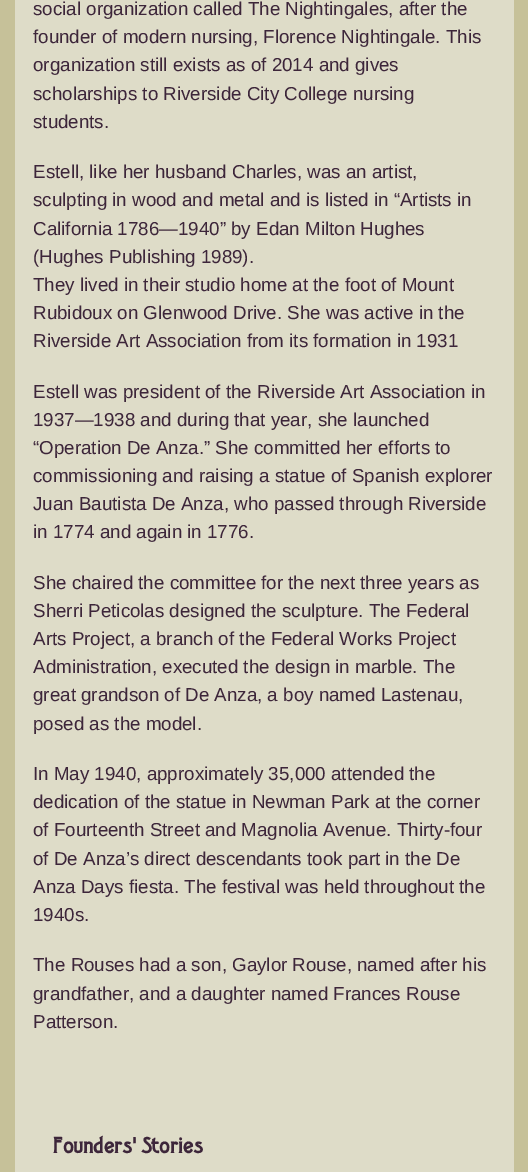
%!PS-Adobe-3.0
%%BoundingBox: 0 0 528 1172
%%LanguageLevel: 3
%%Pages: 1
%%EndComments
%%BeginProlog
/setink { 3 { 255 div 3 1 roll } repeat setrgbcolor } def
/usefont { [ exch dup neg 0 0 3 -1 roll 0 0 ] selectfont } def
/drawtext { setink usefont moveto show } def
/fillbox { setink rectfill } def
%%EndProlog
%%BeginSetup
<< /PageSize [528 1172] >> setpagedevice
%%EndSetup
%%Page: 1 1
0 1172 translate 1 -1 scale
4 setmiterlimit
0 0 528 1172 198 193 153 fillbox
15 0 499 1172 222 220 200 fillbox
(social organization called The Nightingales, after the) 33 15 /LiberationSans-Regular 18.75 61 38 58 drawtext
(founder of modern nursing, Florence Nightingale. This) 33 43 /LiberationSans-Regular 18.75 61 38 58 drawtext
(organization still exists as of 2014 and gives) 33 71 /LiberationSans-Regular 18.75 61 38 58 drawtext
(scholarships to Riverside City College nursing) 33 100 /LiberationSans-Regular 18.75 61 38 58 drawtext
(students.) 33 128 /LiberationSans-Regular 18.75 61 38 58 drawtext
(Estell, like her husband Charles, was an artist,) 33 178 /LiberationSans-Regular 18.75 61 38 58 drawtext
(sculpting in wood and metal and is listed in “Artists in) 33 206 /LiberationSans-Regular 18.75 61 38 58 drawtext
(California 1786—1940” by Edan Milton Hughes) 33 235 /LiberationSans-Regular 18.75 61 38 58 drawtext
(\(Hughes Publishing 1989\).) 33 263 /LiberationSans-Regular 18.75 61 38 58 drawtext
(They lived in their studio home at the foot of Mount) 33 291 /LiberationSans-Regular 18.75 61 38 58 drawtext
(Rubidoux on Glenwood Drive. She was active in the) 33 319 /LiberationSans-Regular 18.75 61 38 58 drawtext
(Riverside Art Association from its formation in 1931) 33 347 /LiberationSans-Regular 18.75 61 38 58 drawtext
(Estell was president of the Riverside Art Association in) 33 398 /LiberationSans-Regular 18.75 61 38 58 drawtext
(1937—1938 and during that year, she launched) 33 426 /LiberationSans-Regular 18.75 61 38 58 drawtext
(“Operation De Anza.” She committed her efforts to) 33 454 /LiberationSans-Regular 18.75 61 38 58 drawtext
(commissioning and raising a statue of Spanish explorer) 33 482 /LiberationSans-Regular 18.75 61 38 58 drawtext
(Juan Bautista De Anza, who passed through Riverside) 33 510 /LiberationSans-Regular 18.75 61 38 58 drawtext
(in 1774 and again in 1776.) 33 538 /LiberationSans-Regular 18.75 61 38 58 drawtext
(She chaired the committee for the next three years as) 33 589 /LiberationSans-Regular 18.75 61 38 58 drawtext
(Sherri Peticolas designed the sculpture. The Federal) 33 617 /LiberationSans-Regular 18.75 61 38 58 drawtext
(Arts Project, a branch of the Federal Works Project) 33 645 /LiberationSans-Regular 18.75 61 38 58 drawtext
(Administration, executed the design in marble. The) 33 673 /LiberationSans-Regular 18.75 61 38 58 drawtext
(great grandson of De Anza, a boy named Lastenau,) 33 701 /LiberationSans-Regular 18.75 61 38 58 drawtext
(posed as the model.) 33 730 /LiberationSans-Regular 18.75 61 38 58 drawtext
(In May 1940, approximately 35,000 attended the) 33 780 /LiberationSans-Regular 18.75 61 38 58 drawtext
(dedication of the statue in Newman Park at the corner) 33 808 /LiberationSans-Regular 18.75 61 38 58 drawtext
(of Fourteenth Street and Magnolia Avenue. Thirty-four) 33 836 /LiberationSans-Regular 18.75 61 38 58 drawtext
(of De Anza’s direct descendants took part in the De) 33 865 /LiberationSans-Regular 18.75 61 38 58 drawtext
(Anza Days fiesta. The festival was held throughout the) 33 893 /LiberationSans-Regular 18.75 61 38 58 drawtext
(1940s.) 33 921 /LiberationSans-Regular 18.75 61 38 58 drawtext
(The Rouses had a son, Gaylor Rouse, named after his) 33 971 /LiberationSans-Regular 18.75 61 38 58 drawtext
(grandfather, and a daughter named Frances Rouse) 33 1000 /LiberationSans-Regular 18.75 61 38 58 drawtext
(Patterson.) 33 1028 /LiberationSans-Regular 18.75 61 38 58 drawtext
(Founders' Stories) 53 1153 /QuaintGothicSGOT-Bold 22.5 61 38 58 drawtext
showpage
%%EOF
